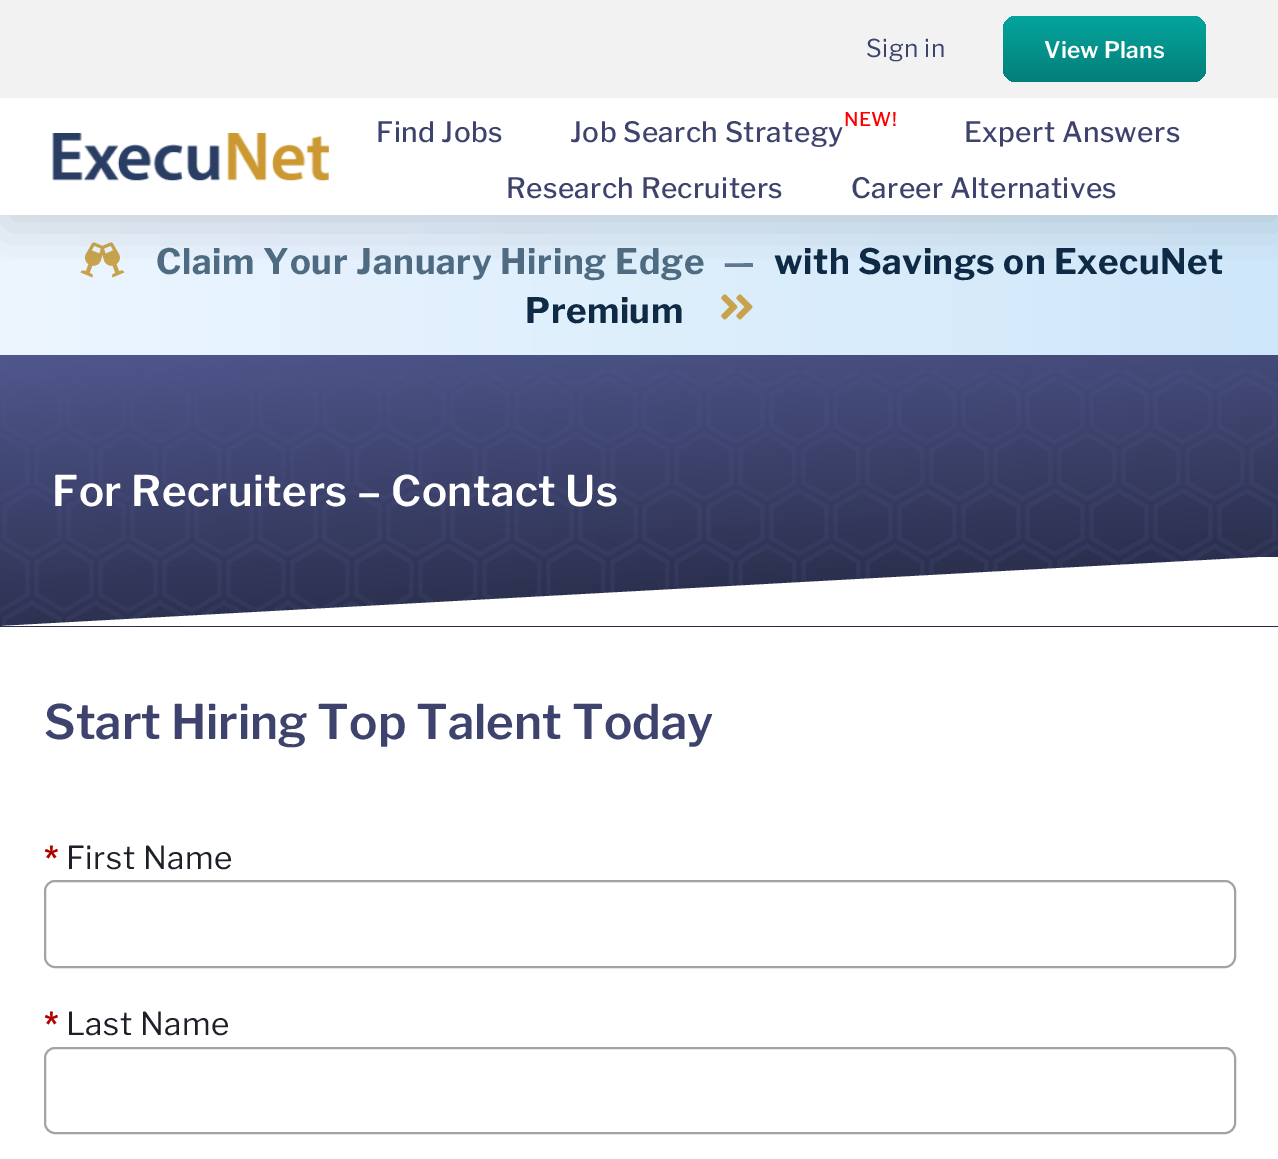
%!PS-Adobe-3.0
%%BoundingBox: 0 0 1278 1159
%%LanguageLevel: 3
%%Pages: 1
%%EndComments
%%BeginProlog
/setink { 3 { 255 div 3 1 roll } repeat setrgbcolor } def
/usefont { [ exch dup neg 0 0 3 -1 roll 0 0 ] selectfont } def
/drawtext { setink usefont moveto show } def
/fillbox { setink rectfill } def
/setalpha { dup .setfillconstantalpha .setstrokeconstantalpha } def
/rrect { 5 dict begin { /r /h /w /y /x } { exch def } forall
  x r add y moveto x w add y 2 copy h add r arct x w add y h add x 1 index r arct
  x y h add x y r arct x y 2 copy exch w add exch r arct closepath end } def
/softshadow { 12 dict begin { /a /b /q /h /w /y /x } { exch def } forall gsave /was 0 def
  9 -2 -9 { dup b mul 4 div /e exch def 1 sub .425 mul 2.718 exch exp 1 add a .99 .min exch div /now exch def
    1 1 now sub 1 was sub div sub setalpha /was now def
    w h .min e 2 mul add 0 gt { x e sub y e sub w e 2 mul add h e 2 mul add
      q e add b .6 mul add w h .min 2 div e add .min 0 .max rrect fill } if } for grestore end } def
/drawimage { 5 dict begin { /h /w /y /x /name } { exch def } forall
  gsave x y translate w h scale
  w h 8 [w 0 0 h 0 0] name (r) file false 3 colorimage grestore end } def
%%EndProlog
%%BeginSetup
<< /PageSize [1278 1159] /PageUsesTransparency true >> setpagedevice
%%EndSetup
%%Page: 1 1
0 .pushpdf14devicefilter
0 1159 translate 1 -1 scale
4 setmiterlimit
0 0 1278 1159 255 255 255 fillbox
gsave 0 215 moveto 1278 215 lineto 1278 355 lineto 0 355 lineto closepath clip newpath
<< /ShadingType 2 /ColorSpace /DeviceRGB /Coords [0 285 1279 285] /Extend [true true] /Function << /FunctionType 2 /Domain [0 1] /C0 [0.929 0.965 1] /C1 [0.812 0.906 0.98] /N 1 >> >> shfill grestore
(assets/img2.rgb) 80 242 45 36 drawimage
(assets/img3.rgb) 721 294 32 26 drawimage
gsave
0 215 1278 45 rectclip
102 102 102 setink
4 110 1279 118 0 23.5 0.23 softshadow
grestore
0 0 1278 98 242 242 242 fillbox
/LibreFranklin-Regular 24.5 usefont
61 67 109 setink
866 57 moveto 0.5 0 (Sign in) ashow
gsave 1003 16 203 66 14 rrect clip newpath
<< /ShadingType 2 /ColorSpace /DeviceRGB /Coords [1104 16 1104 82] /Extend [true true] /Function << /FunctionType 2 /Domain [0 1] /C0 [0.016 0.647 0.616] /C1 [0.012 0.498 0.475] /N 1 >> >> shfill grestore
/LibreFranklin-SemiBold 22.75 usefont
255 255 255 setink
1044 58 moveto 0.25 0 (View Plans) ashow
(assets/img1.rgb) 52 133 277 48 drawimage
/LibreFranklin-Medium 28 usefont
61 67 109 setink
376 142 moveto 0.4 0 (Find Jobs) ashow
/LibreFranklin-Medium 19 usefont
255 0 0 setink
844 126 moveto 0.4 0 (NEW!) ashow
/LibreFranklin-Medium 28 usefont
61 67 109 setink
570 142 moveto 0.4 0 (Job Search Strategy) ashow
964 142 moveto 0.4 0 (Expert Answers) ashow
506 198 moveto 0.4 0 (Research Recruiters) ashow
851 198 moveto 0.4 0 (Career Alternatives) ashow
/LibreFranklin-Bold 35 usefont
79 107 130 setink
156 274 moveto 0.7 0 (Claim Your January Hiring Edge) ashow
96 120 142 setink
723 274 moveto 0.5 0 (—) ashow
14 42 69 setink
774 274 moveto 0.5 0 (with Savings on ExecuNet) ashow
525 323 moveto 0.5 0 (Premium) ashow
gsave 0 355 moveto 1278 355 lineto 1278 627 lineto 0 627 lineto closepath clip newpath
<< /ShadingType 2 /ColorSpace /DeviceRGB /Coords [627 311 652 670] /Extend [true true] /Function << /FunctionType 2 /Domain [0 1] /C0 [0.31 0.341 0.553] /C1 [0.133 0.145 0.239] /N 1 >> >> shfill grestore
(assets/img4.rgb) 0 369 1278 258 drawimage
/LibreFranklin-SemiBold 42 usefont
255 255 255 setink
52 506 moveto 0.5 0 (For Recruiters – Contact Us) ashow
gsave
2 557 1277 70 rectclip
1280 556 moveto 1 626 lineto 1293 626 lineto closepath fill
grestore
(Start Hiring Top Talent Today) 44 739 /LibreFranklin-SemiBold 47.4 61 67 109 drawtext
/LibreFranklin-Bold 31.5 usefont
178 0 0 setink
44 869 moveto 0.5 0 (*) ashow
/LibreFranklin-Regular 31.5 usefont
29 32 40 setink
66 869 moveto 0.5 0 (First Name) ashow
163 163 163 setink
2 setlinewidth
45 881 1190 86 10 rrect stroke
/LibreFranklin-Bold 31.5 usefont
178 0 0 setink
44 1035 moveto 0.5 0 (*) ashow
/LibreFranklin-Regular 31.5 usefont
29 32 40 setink
66 1035 moveto 0.5 0 (Last Name) ashow
163 163 163 setink
45 1048 1190 85 10 rrect stroke
.poppdf14devicefilter showpage
%%EOF
